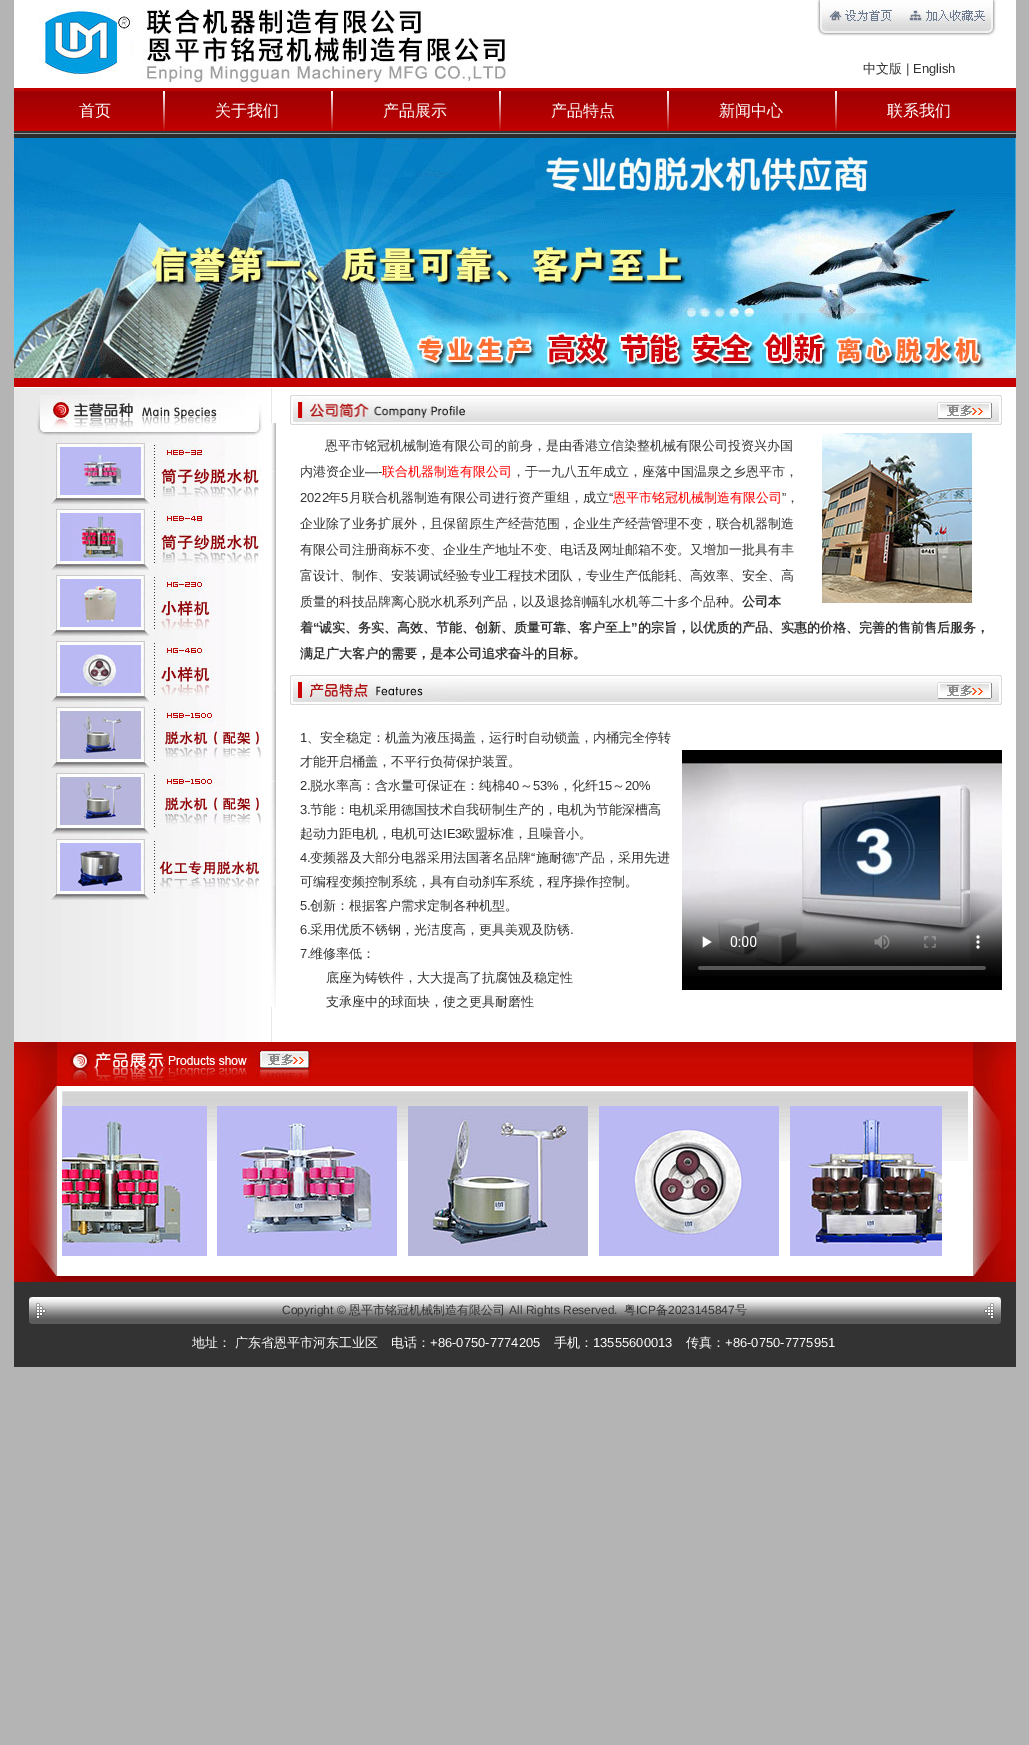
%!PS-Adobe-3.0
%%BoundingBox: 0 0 1029 1745
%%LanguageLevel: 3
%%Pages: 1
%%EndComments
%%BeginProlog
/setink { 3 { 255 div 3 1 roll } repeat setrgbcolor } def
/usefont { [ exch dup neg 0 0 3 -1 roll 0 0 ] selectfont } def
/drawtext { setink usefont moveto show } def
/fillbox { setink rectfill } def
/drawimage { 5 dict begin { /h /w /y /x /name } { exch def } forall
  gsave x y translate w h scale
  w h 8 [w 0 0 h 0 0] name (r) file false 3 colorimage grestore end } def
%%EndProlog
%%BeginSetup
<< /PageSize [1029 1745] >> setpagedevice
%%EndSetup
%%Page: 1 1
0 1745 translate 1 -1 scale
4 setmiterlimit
0 0 1029 1745 180 180 180 fillbox
14 0 1002 1271 255 255 255 fillbox
(assets/img1.rgb) 38 8 471 80 drawimage
(assets/img2.rgb) 817 0 84 36 drawimage
(assets/img3.rgb) 901 0 95 36 drawimage
(中文版) 863 73 /WenQuanYiZenHei-Medium 13 51 51 51 drawtext
(| English) 906 73 /LiberationSans-Regular 13 51 51 51 drawtext
(assets/img4.rgb) 14 88 1002 43 drawimage
14 131 1002 2 51 52 53 fillbox
(首页) 79 116 /WenQuanYiZenHei-Medium 16 255 255 255 drawtext
(assets/img5.rgb) 163 91 2 39 drawimage
(关于我们) 215 116 /WenQuanYiZenHei-Medium 16 255 255 255 drawtext
(assets/img5.rgb) 331 91 2 39 drawimage
(产品展示) 383 116 /WenQuanYiZenHei-Medium 16 255 255 255 drawtext
(assets/img5.rgb) 499 91 2 39 drawimage
(产品特点) 551 116 /WenQuanYiZenHei-Medium 16 255 255 255 drawtext
(assets/img5.rgb) 667 91 2 39 drawimage
(新闻中心) 719 116 /WenQuanYiZenHei-Medium 16 255 255 255 drawtext
(assets/img5.rgb) 835 91 2 39 drawimage
(联系我们) 887 116 /WenQuanYiZenHei-Medium 16 255 255 255 drawtext
14 133 1002 1 150 154 153 fillbox
14 378 1002 9 196 0 1 fillbox
14 134 1002 4 44 46 45 fillbox
(assets/img6.rgb) 14 138 1002 240 drawimage
(assets/img7.rgb) 14 388 258 654 drawimage
(assets/img8.rgb) 271 423 5 584 drawimage
(assets/img9.rgb) 37 395 225 41 drawimage
(assets/img10.rgb) 51 443 210 61 drawimage
(assets/img11.rgb) 51 509 210 61 drawimage
(assets/img12.rgb) 51 575 162 61 drawimage
(assets/img13.rgb) 51 641 162 61 drawimage
(assets/img14.rgb) 51 707 210 61 drawimage
(assets/img14.rgb) 51 773 210 61 drawimage
(assets/img15.rgb) 51 839 210 61 drawimage
(assets/img16.rgb) 467 395 532 30 drawimage
(assets/img17.rgb) 290 395 177 30 drawimage
(assets/img18.rgb) 999 395 3 30 drawimage
(assets/img19.rgb) 937 402 55 17 drawimage
(恩平市铭冠机械制造有限公司的前身，是由香港立信染整机械有限公司投资兴办国) 325 450 /WenQuanYiZenHei-Medium 13 51 51 51 drawtext
(assets/img20.rgb) 822 433 150 170 drawimage
(内港资企业) 300 476 /WenQuanYiZenHei-Medium 13 51 51 51 drawtext
(—-) 365 476 /LiberationSans-Regular 13 51 51 51 drawtext
(联合机器制造有限公司) 382 476 /WenQuanYiZenHei-Medium 13 255 0 0 drawtext
(，于一九八五年成立，座落中国温泉之乡恩平市，) 512 476 /WenQuanYiZenHei-Medium 13 51 51 51 drawtext
(2022) 300 502 /LiberationSans-Regular 13 51 51 51 drawtext
(年) 328 502 /WenQuanYiZenHei-Medium 13 51 51 51 drawtext
(5) 341 502 /LiberationSans-Regular 13 51 51 51 drawtext
(月联合机器制造有限公司进行资产重组，成立) 349 502 /WenQuanYiZenHei-Medium 13 51 51 51 drawtext
(“) 609 502 /LiberationSans-Regular 13 51 51 51 drawtext
(恩平市铭冠机械制造有限公司) 613 502 /WenQuanYiZenHei-Medium 13 255 0 0 drawtext
(”) 782 502 /LiberationSans-Regular 13 51 51 51 drawtext
(，) 786 502 /WenQuanYiZenHei-Medium 13 51 51 51 drawtext
(企业除了业务扩展外，且保留原生产经营范围，企业生产经营管理不变，联合机器制造) 300 528 /WenQuanYiZenHei-Medium 13 51 51 51 drawtext
(有限公司注册商标不变、企业生产地址不变、电话及网址邮箱不变。又增加一批具有丰) 300 554 /WenQuanYiZenHei-Medium 13 51 51 51 drawtext
(富设计、制作、安装调试经验专业工程技术团队，专业生产低能耗、高效率、安全、高) 300 580 /WenQuanYiZenHei-Medium 13 51 51 51 drawtext
(质量的科技品牌离心脱水机系列产品，以及退捻剖幅轧水机等二十多个品种。) 300 606 /WenQuanYiZenHei-Medium 13 51 51 51 drawtext
(公司本) 742 606 /WenQuanYiZenHei-Bold 13 51 51 51 drawtext
(着) 300 632 /WenQuanYiZenHei-Bold 13 51 51 51 drawtext
(“) 313 632 /LiberationSans-Bold 13 51 51 51 drawtext
(诚实、务实、高效、节能、创新、质量可靠、客户至上) 319 632 /WenQuanYiZenHei-Bold 13 51 51 51 drawtext
(”) 631 632 /LiberationSans-Bold 13 51 51 51 drawtext
(的宗旨，以优质的产品、实惠的价格、完善的售前售后服务，) 638 632 /WenQuanYiZenHei-Bold 13 51 51 51 drawtext
(满足广大客户的需要，是本公司追求奋斗的目标。) 300 658 /WenQuanYiZenHei-Bold 13 51 51 51 drawtext
(assets/img21.rgb) 466 675 533 30 drawimage
(assets/img22.rgb) 290 675 176 30 drawimage
(assets/img18.rgb) 999 675 3 30 drawimage
(assets/img19.rgb) 937 682 55 17 drawimage
(1) 300 742 /LiberationSans-Regular 13 51 51 51 drawtext
(、安全稳定：机盖为液压揭盖，运行时自动锁盖，内桶完全停转) 307 742 /WenQuanYiZenHei-Medium 13 51 51 51 drawtext
(才能开启桶盖，不平行负荷保护装置。) 300 766 /WenQuanYiZenHei-Medium 13 51 51 51 drawtext
(2.) 300 790 /LiberationSans-Regular 13 51 51 51 drawtext
(脱水率高：含水量可保证在：纯棉) 310 790 /WenQuanYiZenHei-Medium 13 51 51 51 drawtext
(40) 505 790 /LiberationSans-Regular 13 51 51 51 drawtext
(～) 520 790 /WenQuanYiZenHei-Medium 13 51 51 51 drawtext
(53%) 533 790 /LiberationSans-Regular 13 51 51 51 drawtext
(，化纤) 559 790 /WenQuanYiZenHei-Medium 13 51 51 51 drawtext
(15) 598 790 /LiberationSans-Regular 13 51 51 51 drawtext
(～) 612 790 /WenQuanYiZenHei-Medium 13 51 51 51 drawtext
(20%) 625 790 /LiberationSans-Regular 13 51 51 51 drawtext
(3.) 300 814 /LiberationSans-Regular 13 51 51 51 drawtext
(节能：电机采用德国技术自我研制生产的，电机为节能深槽高) 310 814 /WenQuanYiZenHei-Medium 13 51 51 51 drawtext
(起动力距电机，电机可达) 300 838 /WenQuanYiZenHei-Medium 13 51 51 51 drawtext
(IE3) 443 838 /LiberationSans-Regular 13 51 51 51 drawtext
(欧盟标准，且噪音小。) 462 838 /WenQuanYiZenHei-Medium 13 51 51 51 drawtext
(4.) 300 862 /LiberationSans-Regular 13 51 51 51 drawtext
(变频器及大部分电器采用法国著名品牌) 310 862 /WenQuanYiZenHei-Medium 13 51 51 51 drawtext
(“) 531 862 /LiberationSans-Regular 13 51 51 51 drawtext
(施耐德) 536 862 /WenQuanYiZenHei-Medium 13 51 51 51 drawtext
(”) 575 862 /LiberationSans-Regular 13 51 51 51 drawtext
(产品，采用先进) 579 862 /WenQuanYiZenHei-Medium 13 51 51 51 drawtext
(可编程变频控制系统，具有自动刹车系统，程序操作控制。) 300 886 /WenQuanYiZenHei-Medium 13 51 51 51 drawtext
(5.) 300 910 /LiberationSans-Regular 13 51 51 51 drawtext
(创新：根据客户需求定制各种机型。) 310 910 /WenQuanYiZenHei-Medium 13 51 51 51 drawtext
(6.) 300 934 /LiberationSans-Regular 13 51 51 51 drawtext
(采用优质不锈钢，光洁度高，更具美观及防锈) 310 934 /WenQuanYiZenHei-Medium 13 51 51 51 drawtext
(.) 570 934 /LiberationSans-Regular 13 51 51 51 drawtext
(7.) 300 958 /LiberationSans-Regular 13 51 51 51 drawtext
(维修率低：) 310 958 /WenQuanYiZenHei-Medium 13 51 51 51 drawtext
(底座为铸铁件，大大提高了抗腐蚀及稳定性) 326 982 /WenQuanYiZenHei-Medium 13 51 51 51 drawtext
(支承座中的球面块，使之更具耐磨性) 326 1006 /WenQuanYiZenHei-Medium 13 51 51 51 drawtext
682 750 320 240 0 0 0 fillbox
(assets/img23.rgb) 682 763 320 213 drawimage
(assets/img24.rgb) 14 1042 43 240 drawimage
(assets/img25.rgb) 57 1042 916 44 drawimage
(assets/img26.rgb) 65 1046 189 36 drawimage
(assets/img27.rgb) 254 1048 59 34 drawimage
(assets/img28.rgb) 62 1091 906 70 drawimage
255 255 255 setink
5 setlinewidth
59.5 1088.5 911 185 rectstroke
(assets/img29.rgb) 62 1106 145 150 drawimage
(assets/img30.rgb) 217 1106 180 150 drawimage
(assets/img31.rgb) 408 1106 180 150 drawimage
(assets/img32.rgb) 599 1106 180 150 drawimage
(assets/img33.rgb) 790 1106 152 150 drawimage
(assets/img34.rgb) 57 1276 916 6 drawimage
(assets/img35.rgb) 973 1042 43 240 drawimage
14 1282 1002 85 51 51 51 fillbox
(assets/img36.rgb) 29 1297 19 27 drawimage
(assets/img37.rgb) 48 1297 934 27 drawimage
(Copyright ©) 282 1314 /LiberationSans-Regular 12 51 51 51 drawtext
(恩平市铭冠机械制造有限公司) 349 1314 /WenQuanYiZenHei-Medium 12 51 51 51 drawtext
(All Rights Reserved.) 509 1314 /LiberationSans-Regular 12 51 51 51 drawtext
(粤) 624 1314 /WenQuanYiZenHei-Medium 12 51 51 51 drawtext
(ICP) 636 1314 /LiberationSans-Regular 12 51 51 51 drawtext
(备) 656 1314 /WenQuanYiZenHei-Medium 12 51 51 51 drawtext
(2023145847) 668 1314 /LiberationSans-Regular 12 51 51 51 drawtext
(号) 735 1314 /WenQuanYiZenHei-Medium 12 51 51 51 drawtext
(assets/img38.rgb) 982 1297 19 27 drawimage
(地址： 广东省恩平市河东工业区) 192 1347 /WenQuanYiZenHei-Medium 13 255 255 255 drawtext
(电话：) 391 1347 /WenQuanYiZenHei-Medium 13 255 255 255 drawtext
(+86-0750-7774205) 430 1347 /LiberationSans-Regular 13 255 255 255 drawtext
(手机：) 554 1347 /WenQuanYiZenHei-Medium 13 255 255 255 drawtext
(13555600013) 593 1347 /LiberationSans-Regular 13 255 255 255 drawtext
(传真：) 686 1347 /WenQuanYiZenHei-Medium 13 255 255 255 drawtext
(+86-0750-7775951) 725 1347 /LiberationSans-Regular 13 255 255 255 drawtext
showpage
%%EOF
